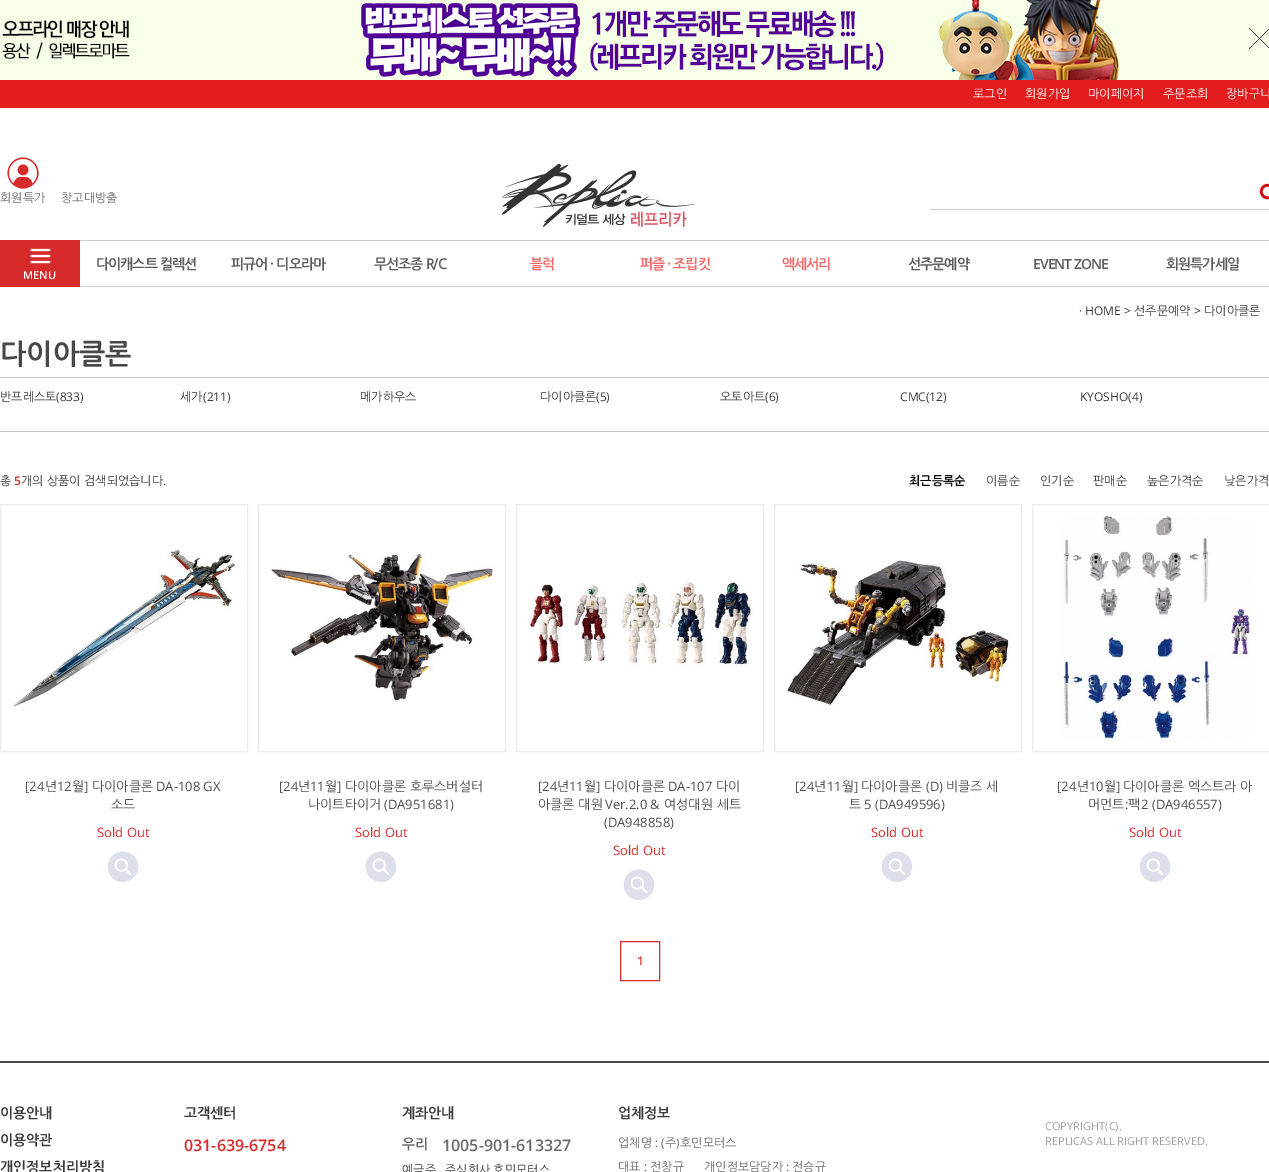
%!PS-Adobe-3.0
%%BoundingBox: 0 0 1269 1172
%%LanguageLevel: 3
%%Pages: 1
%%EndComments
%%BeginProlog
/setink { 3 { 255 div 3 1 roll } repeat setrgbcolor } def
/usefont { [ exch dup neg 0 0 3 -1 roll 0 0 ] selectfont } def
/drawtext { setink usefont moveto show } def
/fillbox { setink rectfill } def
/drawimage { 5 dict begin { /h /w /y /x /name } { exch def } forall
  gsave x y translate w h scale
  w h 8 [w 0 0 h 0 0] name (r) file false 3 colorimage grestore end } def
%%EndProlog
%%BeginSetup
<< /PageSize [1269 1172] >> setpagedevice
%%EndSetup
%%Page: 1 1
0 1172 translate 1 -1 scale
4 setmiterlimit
0 0 1269 1172 255 255 255 fillbox
(assets/img1.rgb) 0 0 1269 80 drawimage
(assets/img2.rgb) 1249 28 20 21 drawimage
0 80 1269 28 227 29 29 fillbox
(로그인) 973 98 /NanumGothic-Regular 12 255 255 255 drawtext
(회원가입) 1025 98 /NanumGothic-Regular 12 255 255 255 drawtext
(마이페이지) 1088 98 /NanumGothic-Regular 12 255 255 255 drawtext
(주문조회) 1163 98 /NanumGothic-Regular 12 255 255 255 drawtext
(장바구니) 1226 98 /NanumGothic-Regular 12 255 255 255 drawtext
(assets/img3.rgb) 7 157 32 32 drawimage
(회원특가) 0 202 /NanumGothic-Regular 12 107 107 107 drawtext
(창고대방출) 61 202 /NanumGothic-Regular 12 107 107 107 drawtext
(assets/img4.rgb) 502 164 193 63 drawimage
930 209 339 1 202 202 202 fillbox
(assets/img5.rgb) 1259 183 10 17 drawimage
80 240 1189 1 202 202 202 fillbox
80 286 1189 1 202 202 202 fillbox
/NanumGothic-Bold 14 usefont
93 93 93 setink
96 269 moveto -1 0 (다이캐스트 컬렉션) ashow
231 269 moveto -1 0 (피규어 · 디오라마) ashow
374 269 moveto -1 0 (무선조종 R/C) ashow
241 105 105 setink
530 269 moveto -1 0 (블럭) ashow
640 269 moveto -1 0 (퍼즐 · 조립킷) ashow
782 269 moveto -1 0 (액세서리) ashow
93 93 93 setink
908 269 moveto -1 0 (선주문예약) ashow
/OpenSans-SemiBold 14 usefont
1033 269 moveto -1 0 (EVENT ZONE) ashow
/NanumGothic-Bold 14 usefont
1166 269 moveto -1 0 (회원특가세일) ashow
0 240 80 47 215 42 42 fillbox
(assets/img6.rgb) 30 248 21 16 drawimage
(MENU) 23 279 /OpenSans-SemiBold 11 255 255 255 drawtext
(· HOME >) 1079 315 /OpenSans-Regular 12 59 59 59 drawtext
(선주문예약) 1134 315 /NanumGothic-Regular 12 59 59 59 drawtext
(>) 1194 315 /OpenSans-Regular 12 59 59 59 drawtext
(다이아클론) 1204 315 /NanumGothic-Regular 12 59 59 59 drawtext
(다이아클론) 0 364 /NanumGothic-Bold 28 71 71 71 drawtext
0 377 1269 1 199 199 199 fillbox
0 431 1269 1 199 199 199 fillbox
(반프레스토) 0 401 /NanumGothic-Regular 12 59 59 59 drawtext
(\(833\)) 56 401 /OpenSans-Regular 12 59 59 59 drawtext
(세가) 180 401 /NanumGothic-Regular 12 59 59 59 drawtext
(\(211\)) 203 401 /OpenSans-Regular 12 59 59 59 drawtext
(메가하우스) 360 401 /NanumGothic-Regular 12 59 59 59 drawtext
(다이아클론) 540 401 /NanumGothic-Regular 12 59 59 59 drawtext
(\(5\)) 596 401 /OpenSans-Regular 12 59 59 59 drawtext
(오토아트) 720 401 /NanumGothic-Regular 12 59 59 59 drawtext
(\(6\)) 765 401 /OpenSans-Regular 12 59 59 59 drawtext
(CMC\(12\)) 900 401 /OpenSans-Regular 12 59 59 59 drawtext
(KYOSHO\(4\)) 1080 401 /OpenSans-Regular 12 59 59 59 drawtext
(총) 0 485 /NanumGothic-Regular 12 59 59 59 drawtext
(5) 14 485 /OpenSans-SemiBold 12 215 42 42 drawtext
(개의 상품이 검색되었습니다) 21 485 /NanumGothic-Regular 12 59 59 59 drawtext
(.) 163 485 /OpenSans-Regular 12 59 59 59 drawtext
(최근등록순) 909 485 /NanumGothic-Bold 12 0 0 0 drawtext
(이름순) 986 485 /NanumGothic-Regular 12 59 59 59 drawtext
(인기순) 1040 485 /NanumGothic-Regular 12 59 59 59 drawtext
(판매순) 1093 485 /NanumGothic-Regular 12 59 59 59 drawtext
(높은가격순) 1147 485 /NanumGothic-Regular 12 59 59 59 drawtext
(낮은가격) 1224 485 /NanumGothic-Regular 12 59 59 59 drawtext
236 236 236 setink
0.5 504.5 247 247 rectstroke
(assets/img7.rgb) 13 549 224 158 drawimage
([24) 25 791 /OpenSans-Regular 13 78 78 78 drawtext
(년) 45 791 /NanumGothic-Regular 13 78 78 78 drawtext
(12) 57 791 /OpenSans-Regular 13 78 78 78 drawtext
(월) 72 791 /NanumGothic-Regular 13 78 78 78 drawtext
(]) 84 791 /OpenSans-Regular 13 78 78 78 drawtext
(다이아클론) 92 791 /NanumGothic-Regular 13 78 78 78 drawtext
(DA-108 GX) 156 791 /OpenSans-Regular 13 78 78 78 drawtext
(소드) 111 809 /NanumGothic-Regular 13 78 78 78 drawtext
(Sold Out) 97 837 /OpenSans-Regular 13 215 42 42 drawtext
(assets/img8.rgb) 107 851 32 31 drawimage
236 236 236 setink
258.5 504.5 247 247 rectstroke
(assets/img9.rgb) 268 553 227 149 drawimage
([24) 279 791 /OpenSans-Regular 13 78 78 78 drawtext
(년) 298 791 /NanumGothic-Regular 13 78 78 78 drawtext
(11) 310 791 /OpenSans-Regular 13 78 78 78 drawtext
(월) 325 791 /NanumGothic-Regular 13 78 78 78 drawtext
(]) 337 791 /OpenSans-Regular 13 78 78 78 drawtext
(다이아클론 호루스버설터) 345 791 /NanumGothic-Regular 13 78 78 78 drawtext
(나이트타이거) 308 809 /NanumGothic-Regular 13 78 78 78 drawtext
(\(DA951681\)) 384 809 /OpenSans-Regular 13 78 78 78 drawtext
(Sold Out) 355 837 /OpenSans-Regular 13 215 42 42 drawtext
(assets/img8.rgb) 365 851 32 31 drawimage
236 236 236 setink
516.5 504.5 247 247 rectstroke
(assets/img10.rgb) 528 581 225 86 drawimage
([24) 538 791 /OpenSans-Regular 13 78 78 78 drawtext
(년) 557 791 /NanumGothic-Regular 13 78 78 78 drawtext
(11) 569 791 /OpenSans-Regular 13 78 78 78 drawtext
(월) 584 791 /NanumGothic-Regular 13 78 78 78 drawtext
(]) 596 791 /OpenSans-Regular 13 78 78 78 drawtext
(다이아클론) 604 791 /NanumGothic-Regular 13 78 78 78 drawtext
(DA-107) 668 791 /OpenSans-Regular 13 78 78 78 drawtext
(다이) 716 791 /NanumGothic-Regular 13 78 78 78 drawtext
(아클론 대원) 538 809 /NanumGothic-Regular 13 78 78 78 drawtext
(Ver.2.0 &) 605 809 /OpenSans-Regular 13 78 78 78 drawtext
(여성대원 세트) 664 809 /NanumGothic-Regular 13 78 78 78 drawtext
(\(DA948858\)) 604 827 /OpenSans-Regular 13 78 78 78 drawtext
(Sold Out) 613 855 /OpenSans-Regular 13 215 42 42 drawtext
(assets/img8.rgb) 623 869 32 31 drawimage
236 236 236 setink
774.5 504.5 247 247 rectstroke
(assets/img11.rgb) 787 560 224 146 drawimage
([24) 795 791 /OpenSans-Regular 13 78 78 78 drawtext
(년) 814 791 /NanumGothic-Regular 13 78 78 78 drawtext
(11) 827 791 /OpenSans-Regular 13 78 78 78 drawtext
(월) 842 791 /NanumGothic-Regular 13 78 78 78 drawtext
(]) 854 791 /OpenSans-Regular 13 78 78 78 drawtext
(다이아클론) 861 791 /NanumGothic-Regular 13 78 78 78 drawtext
(\(D\)) 926 791 /OpenSans-Regular 13 78 78 78 drawtext
(비클즈 세) 946 791 /NanumGothic-Regular 13 78 78 78 drawtext
(트) 849 809 /NanumGothic-Regular 13 78 78 78 drawtext
(5 \(DA949596\)) 864 809 /OpenSans-Regular 13 78 78 78 drawtext
(Sold Out) 871 837 /OpenSans-Regular 13 215 42 42 drawtext
(assets/img8.rgb) 881 851 32 31 drawimage
236 236 236 setink
1032.5 504.5 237 247 rectstroke
(assets/img12.rgb) 1059 515 193 227 drawimage
([24) 1057 791 /OpenSans-Regular 13 78 78 78 drawtext
(년) 1077 791 /NanumGothic-Regular 13 78 78 78 drawtext
(10) 1089 791 /OpenSans-Regular 13 78 78 78 drawtext
(월) 1104 791 /NanumGothic-Regular 13 78 78 78 drawtext
(]) 1116 791 /OpenSans-Regular 13 78 78 78 drawtext
(다이아클론 엑스트라 아) 1123 791 /NanumGothic-Regular 13 78 78 78 drawtext
(머먼트 팩) 1088 809 /NanumGothic-Regular 13 78 78 78 drawtext
(2 \(DA946557\)) 1141 809 /OpenSans-Regular 13 78 78 78 drawtext
(:) 1125 809 /OpenSans-Regular 13 78 78 78 drawtext
(Sold Out) 1129 837 /OpenSans-Regular 13 215 42 42 drawtext
(assets/img8.rgb) 1139 851 32 31 drawimage
620.5 941.5 39 39 rectstroke
(1) 637 965 /OpenSans-SemiBold 12 215 42 42 drawtext
0 1061 1269 2 71 71 71 fillbox
(이용안내) 0 1118 /NanumGothic-Bold 14 59 59 59 drawtext
(이용약관) 0 1145 /NanumGothic-Bold 14 59 59 59 drawtext
(개인정보처리방침) 0 1172 /NanumGothic-Bold 14 59 59 59 drawtext
(고객센터) 184 1118 /NanumGothic-Bold 14 59 59 59 drawtext
(031-639-6754) 184 1151 /OpenSans-SemiBold 16 215 42 42 drawtext
(계좌안내) 402 1118 /NanumGothic-Bold 14 59 59 59 drawtext
(우리) 402 1149 /NanumGothic-Bold 14 107 107 107 drawtext
(1005-901-613327) 442 1151 /OpenSans-SemiBold 16 107 107 107 drawtext
(예금주) 402 1174 /NanumGothic-Regular 12 59 59 59 drawtext
(주식회사 호민모터스) 445 1174 /NanumGothic-Regular 12 59 59 59 drawtext
(업체정보) 618 1118 /NanumGothic-Bold 14 59 59 59 drawtext
(업체명) 618 1147 /NanumGothic-Regular 12 107 107 107 drawtext
(: \() 655 1147 /OpenSans-Regular 12 107 107 107 drawtext
(주) 665 1147 /NanumGothic-Regular 12 107 107 107 drawtext
(\)) 676 1147 /OpenSans-Regular 12 107 107 107 drawtext
(호민모터스) 680 1147 /NanumGothic-Regular 12 107 107 107 drawtext
(대표) 618 1171 /NanumGothic-Regular 12 107 107 107 drawtext
(:) 644 1171 /OpenSans-Regular 12 107 107 107 drawtext
(전창규) 650 1171 /NanumGothic-Regular 12 107 107 107 drawtext
(개인정보담당자) 704 1171 /NanumGothic-Regular 12 107 107 107 drawtext
(:) 786 1171 /OpenSans-Regular 12 107 107 107 drawtext
(전승규) 792 1171 /NanumGothic-Regular 12 107 107 107 drawtext
(COPYRIGHT\(C\).) 1045 1130 /OpenSans-Regular 11 159 159 159 drawtext
(REPLICAS ALL RIGHT RESERVED.) 1045 1145 /OpenSans-Regular 11 159 159 159 drawtext
showpage
%%EOF
